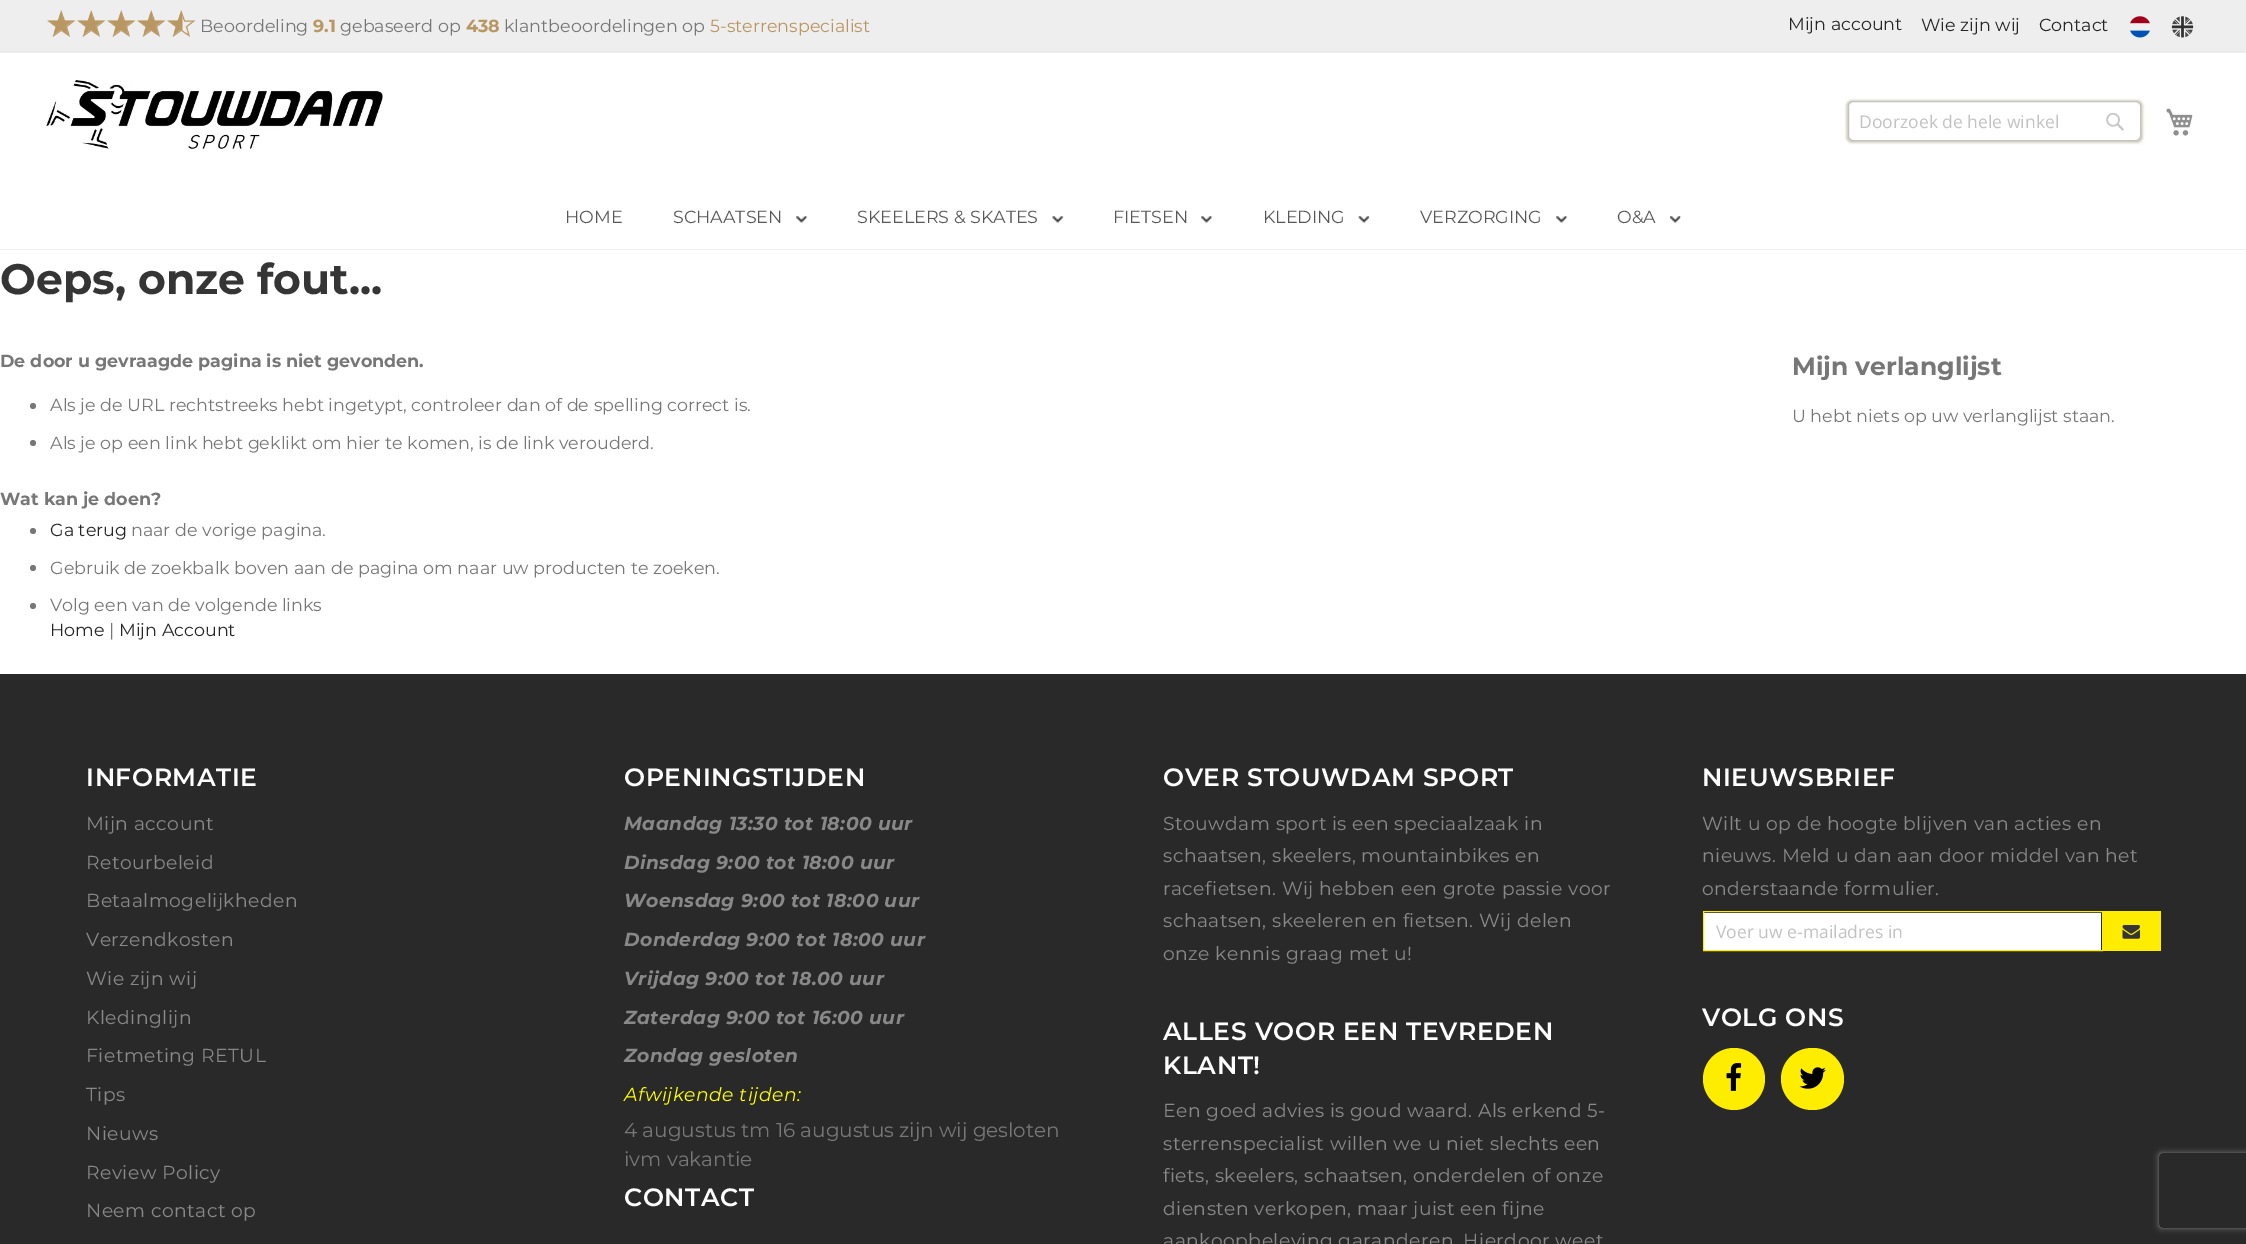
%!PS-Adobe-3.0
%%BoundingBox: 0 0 2246 1244
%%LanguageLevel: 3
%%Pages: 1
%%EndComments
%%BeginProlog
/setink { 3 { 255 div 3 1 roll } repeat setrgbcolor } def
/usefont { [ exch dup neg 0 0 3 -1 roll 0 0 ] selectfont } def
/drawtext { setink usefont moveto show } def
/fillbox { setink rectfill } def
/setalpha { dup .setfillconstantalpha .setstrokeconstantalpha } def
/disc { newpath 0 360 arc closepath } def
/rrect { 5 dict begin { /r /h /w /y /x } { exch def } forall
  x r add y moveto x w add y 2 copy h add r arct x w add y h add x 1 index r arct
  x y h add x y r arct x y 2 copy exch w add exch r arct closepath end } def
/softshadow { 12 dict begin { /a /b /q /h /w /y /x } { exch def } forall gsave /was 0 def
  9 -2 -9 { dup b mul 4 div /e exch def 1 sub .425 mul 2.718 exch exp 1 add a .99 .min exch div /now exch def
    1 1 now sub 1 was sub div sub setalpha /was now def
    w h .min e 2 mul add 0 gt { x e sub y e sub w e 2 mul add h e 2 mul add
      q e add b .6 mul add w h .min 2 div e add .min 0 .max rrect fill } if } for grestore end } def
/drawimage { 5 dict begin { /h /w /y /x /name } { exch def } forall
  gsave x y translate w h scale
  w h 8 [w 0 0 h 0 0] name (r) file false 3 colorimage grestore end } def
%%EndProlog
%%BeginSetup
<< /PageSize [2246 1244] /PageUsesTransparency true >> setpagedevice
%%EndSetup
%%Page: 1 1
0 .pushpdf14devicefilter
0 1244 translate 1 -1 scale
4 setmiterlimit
0 0 2246 1244 255 255 255 fillbox
0 0 2246 53 238 238 238 fillbox
0 51 2246 1 232 232 232 fillbox
(assets/img1.rgb) 47 10 149 27 drawimage
(assets/img2.rgb) 49 12 134 23 drawimage
(Beoordeling) 200 32 /Montserrat-Regular 17.5 119 119 119 drawtext
(9.1) 313 32 /Montserrat-Bold 17.5 185 151 99 drawtext
(gebaseerd op) 340 32 /Montserrat-Regular 17.5 119 119 119 drawtext
(438) 466 32 /Montserrat-Bold 17.5 185 151 99 drawtext
(klantbeoordelingen op) 504 32 /Montserrat-Regular 17.5 119 119 119 drawtext
(5-sterrenspecialist) 710 32 /Montserrat-Regular 17.5 185 151 99 drawtext
(Mijn account) 1788 30 /Montserrat-Regular 17.5 37 37 37 drawtext
(Wie zijn wij) 1921 31 /Montserrat-Regular 17.5 37 37 37 drawtext
(Contact) 2039 31 /Montserrat-Regular 17.5 37 37 37 drawtext
(assets/img3.rgb) 2130 16 20 22 drawimage
(assets/img4.rgb) 2171 16 23 22 drawimage
(assets/img5.rgb) 46 80 337 69 drawimage
gsave
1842 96 moveto 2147 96 lineto 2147 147 lineto 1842 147 lineto closepath 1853 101 moveto 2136 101 lineto 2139 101 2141 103 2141 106 curveto 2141 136 lineto 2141 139 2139 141 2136 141 curveto 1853 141 lineto 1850 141 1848 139 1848 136 curveto 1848 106 lineto 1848 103 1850 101 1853 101 curveto closepath eoclip newpath
212 209 190 setink
1846 100 297 43 6 1 1 softshadow
grestore
194 194 194 setink
1848.5 101.5 292 39 4.5 rrect stroke
(Doorzoek de hele winkel) 1859 128 /OpenSans-Regular 17.5 194 194 194 drawtext
(assets/img6.rgb) 2106 112 18 19 drawimage
(assets/img7.rgb) 2166 108 27 28 drawimage
0 249 2246 1 238 238 238 fillbox
(HOME) 565 223 /Montserrat-Regular 17.5 87 87 87 drawtext
(assets/img8.rgb) 796 216 12 7 drawimage
(SCHAATSEN) 673 223 /Montserrat-Regular 17.5 87 87 87 drawtext
(assets/img9.rgb) 1052 216 12 7 drawimage
(SKEELERS & SKATES) 857 223 /Montserrat-Regular 17.5 87 87 87 drawtext
(assets/img8.rgb) 1201 216 12 7 drawimage
(FIETSEN) 1113 223 /Montserrat-Regular 17.5 87 87 87 drawtext
(assets/img10.rgb) 1358 216 12 7 drawimage
(KLEDING) 1263 223 /Montserrat-Regular 17.5 87 87 87 drawtext
(assets/img8.rgb) 1556 216 12 7 drawimage
(VERZORGING) 1420 223 /Montserrat-Regular 17.5 87 87 87 drawtext
(assets/img11.rgb) 1670 216 11 7 drawimage
(O&A) 1617 223 /Montserrat-Regular 17.5 87 87 87 drawtext
(Oeps, onze fout...) 0 294 /Montserrat-Bold 42.5 53 53 53 drawtext
(De door u gevraagde pagina is niet gevonden.) 0 367 /Montserrat-Bold 17.5 119 119 119 drawtext
33 406 3 disc fill
(Als je de URL rechtstreeks hebt ingetypt, controleer dan of de spelling correct is.) 50 411 /Montserrat-Regular 17.5 119 119 119 drawtext
33 443 3 disc fill
(Als je op een link hebt geklikt om hier te komen, is de link verouderd.) 50 449 /Montserrat-Regular 17.5 119 119 119 drawtext
(Wat kan je doen?) 0 505 /Montserrat-Bold 17.5 119 119 119 drawtext
33 531 3 disc fill
(Ga terug) 50 536 /Montserrat-Regular 17.5 37 37 37 drawtext
(naar de vorige pagina.) 131 536 /Montserrat-Regular 17.5 119 119 119 drawtext
33 568 3 disc fill
(Gebruik de zoekbalk boven aan de pagina om naar uw producten te zoeken.) 50 574 /Montserrat-Regular 17.5 119 119 119 drawtext
33 606 3 disc fill
(Volg een van de volgende links) 50 611 /Montserrat-Regular 17.5 119 119 119 drawtext
(Home) 50 636 /Montserrat-Regular 17.5 37 37 37 drawtext
(|) 109 636 /Montserrat-Regular 17.5 119 119 119 drawtext
(Mijn Account) 119 636 /Montserrat-Regular 17.5 37 37 37 drawtext
(Mijn verlanglijst) 1792 375 /Montserrat-Bold 25 119 119 119 drawtext
(U hebt niets op uw verlanglijst staan.) 1792 422 /Montserrat-Regular 17.5 119 119 119 drawtext
0 674 2246 570 41 41 41 fillbox
/Montserrat-SemiBold 25 usefont
255 255 255 setink
86 786 moveto 0.6 0 (INFORMATIE) ashow
/Montserrat-Regular 18.75 usefont
136 136 136 setink
86 830 moveto 0.45 0 (Mijn account) ashow
86 869 moveto 0.45 0 (Retourbeleid) ashow
86 907 moveto 0.45 0 (Betaalmogelijkheden) ashow
86 946 moveto 0.45 0 (Verzendkosten) ashow
86 985 moveto 0.45 0 (Wie zijn wij) ashow
86 1024 moveto 0.45 0 (Kledinglijn) ashow
86 1062 moveto 0.45 0 (Fietmeting RETUL) ashow
86 1101 moveto 0.45 0 (Tips) ashow
86 1140 moveto 0.45 0 (Nieuws) ashow
86 1179 moveto 0.45 0 (Review Policy) ashow
86 1217 moveto 0.45 0 (Neem contact op) ashow
/Montserrat-SemiBold 25 usefont
255 255 255 setink
624 786 moveto 0.6 0 (OPENINGSTIJDEN) ashow
/Montserrat-BoldItalic 18.75 usefont
136 136 136 setink
624 830 moveto 0.45 0 (Maandag 13:30 tot 18:00 uur) ashow
624 869 moveto 0.45 0 (Dinsdag 9:00 tot 18:00 uur) ashow
624 907 moveto 0.45 0 (Woensdag 9:00 tot 18:00 uur) ashow
624 946 moveto 0.45 0 (Donderdag 9:00 tot 18:00 uur) ashow
624 985 moveto 0.45 0 (Vrijdag 9:00 tot 18.00 uur) ashow
624 1024 moveto 0.45 0 (Zaterdag 9:00 tot 16:00 uur) ashow
624 1062 moveto 0.45 0 (Zondag gesloten) ashow
/Montserrat-Italic 18.75 usefont
255 255 0 setink
624 1101 moveto 0.45 0 (Afwijkende tijden:) ashow
(4 augustus tm 16 augustus zijn wij gesloten) 624 1137 /Montserrat-Regular 20 119 119 119 drawtext
(ivm vakantie) 624 1166 /Montserrat-Regular 20 119 119 119 drawtext
/Montserrat-SemiBold 25 usefont
255 255 255 setink
624 1206 moveto 0.6 0 (CONTACT) ashow
1163 786 moveto 0.6 0 (OVER STOUWDAM SPORT) ashow
/Montserrat-Regular 18.75 usefont
136 136 136 setink
1163 830 moveto 0.45 0 (Stouwdam sport is een speciaalzaak in) ashow
1163 862 moveto 0.45 0 (schaatsen, skeelers, mountainbikes en) ashow
1163 895 moveto 0.45 0 (racefietsen. Wij hebben een grote passie voor) ashow
1163 927 moveto 0.45 0 (schaatsen, skeeleren en fietsen. Wij delen) ashow
1163 960 moveto 0.45 0 (onze kennis graag met u!) ashow
/Montserrat-SemiBold 25 usefont
255 255 255 setink
1163 1040 moveto 0.6 0 (ALLES VOOR EEN TEVREDEN) ashow
1163 1074 moveto 0.6 0 (KLANT!) ashow
/Montserrat-Regular 18.75 usefont
136 136 136 setink
1163 1117 moveto 0.45 0 (Een goed advies is goud waard. Als erkend 5-) ashow
1163 1150 moveto 0.45 0 (sterrenspecialist willen we u niet slechts een) ashow
1163 1182 moveto 0.45 0 (fiets, skeelers, schaatsen, onderdelen of onze) ashow
1163 1215 moveto 0.45 0 (diensten verkopen, maar juist een fijne) ashow
1163 1247 moveto 0.45 0 (aankoopbeleving garanderen. Hierdoor weet) ashow
/Montserrat-SemiBold 25 usefont
255 255 255 setink
1702 786 moveto 0.6 0 (NIEUWSBRIEF) ashow
/Montserrat-Regular 18.75 usefont
136 136 136 setink
1702 830 moveto 0.45 0 (Wilt u op de hoogte blijven van acties en) ashow
1702 862 moveto 0.45 0 (nieuws. Meld u dan aan door middel van het) ashow
1702 895 moveto 0.45 0 (onderstaande formulier.) ashow
1704 913 397 37 255 255 255 fillbox
255 237 0 setink
1703.5 911.5 399 39 rectstroke
(Voer uw e-mailadres in) 1716 938 /OpenSans-Regular 17.5 194 194 194 drawtext
2103 911 58 40 255 237 0 fillbox
(assets/img12.rgb) 2122 925 18 14 drawimage
gsave
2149 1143 moveto 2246 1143 lineto 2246 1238 lineto 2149 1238 lineto closepath 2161.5 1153 moveto 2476.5 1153 lineto 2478 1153 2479 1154 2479 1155.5 curveto 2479 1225.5 lineto 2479 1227 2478 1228 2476.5 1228 curveto 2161.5 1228 lineto 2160 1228 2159 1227 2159 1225.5 curveto 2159 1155.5 lineto 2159 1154 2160 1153 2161.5 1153 curveto closepath eoclip newpath
128 128 128 setink
2159 1153 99 75 2.5 3 1 softshadow
grestore
/Montserrat-SemiBold 25 usefont
255 255 255 setink
1702 1026 moveto 0.6 0 (VOLG ONS) ashow
255 237 0 setink
1734 1079 31 disc fill
(assets/img13.rgb) 1726 1063 16 28 drawimage
1781 1048 63 62 31 rrect fill
(assets/img14.rgb) 1799 1067 27 22 drawimage
.poppdf14devicefilter showpage
%%EOF
